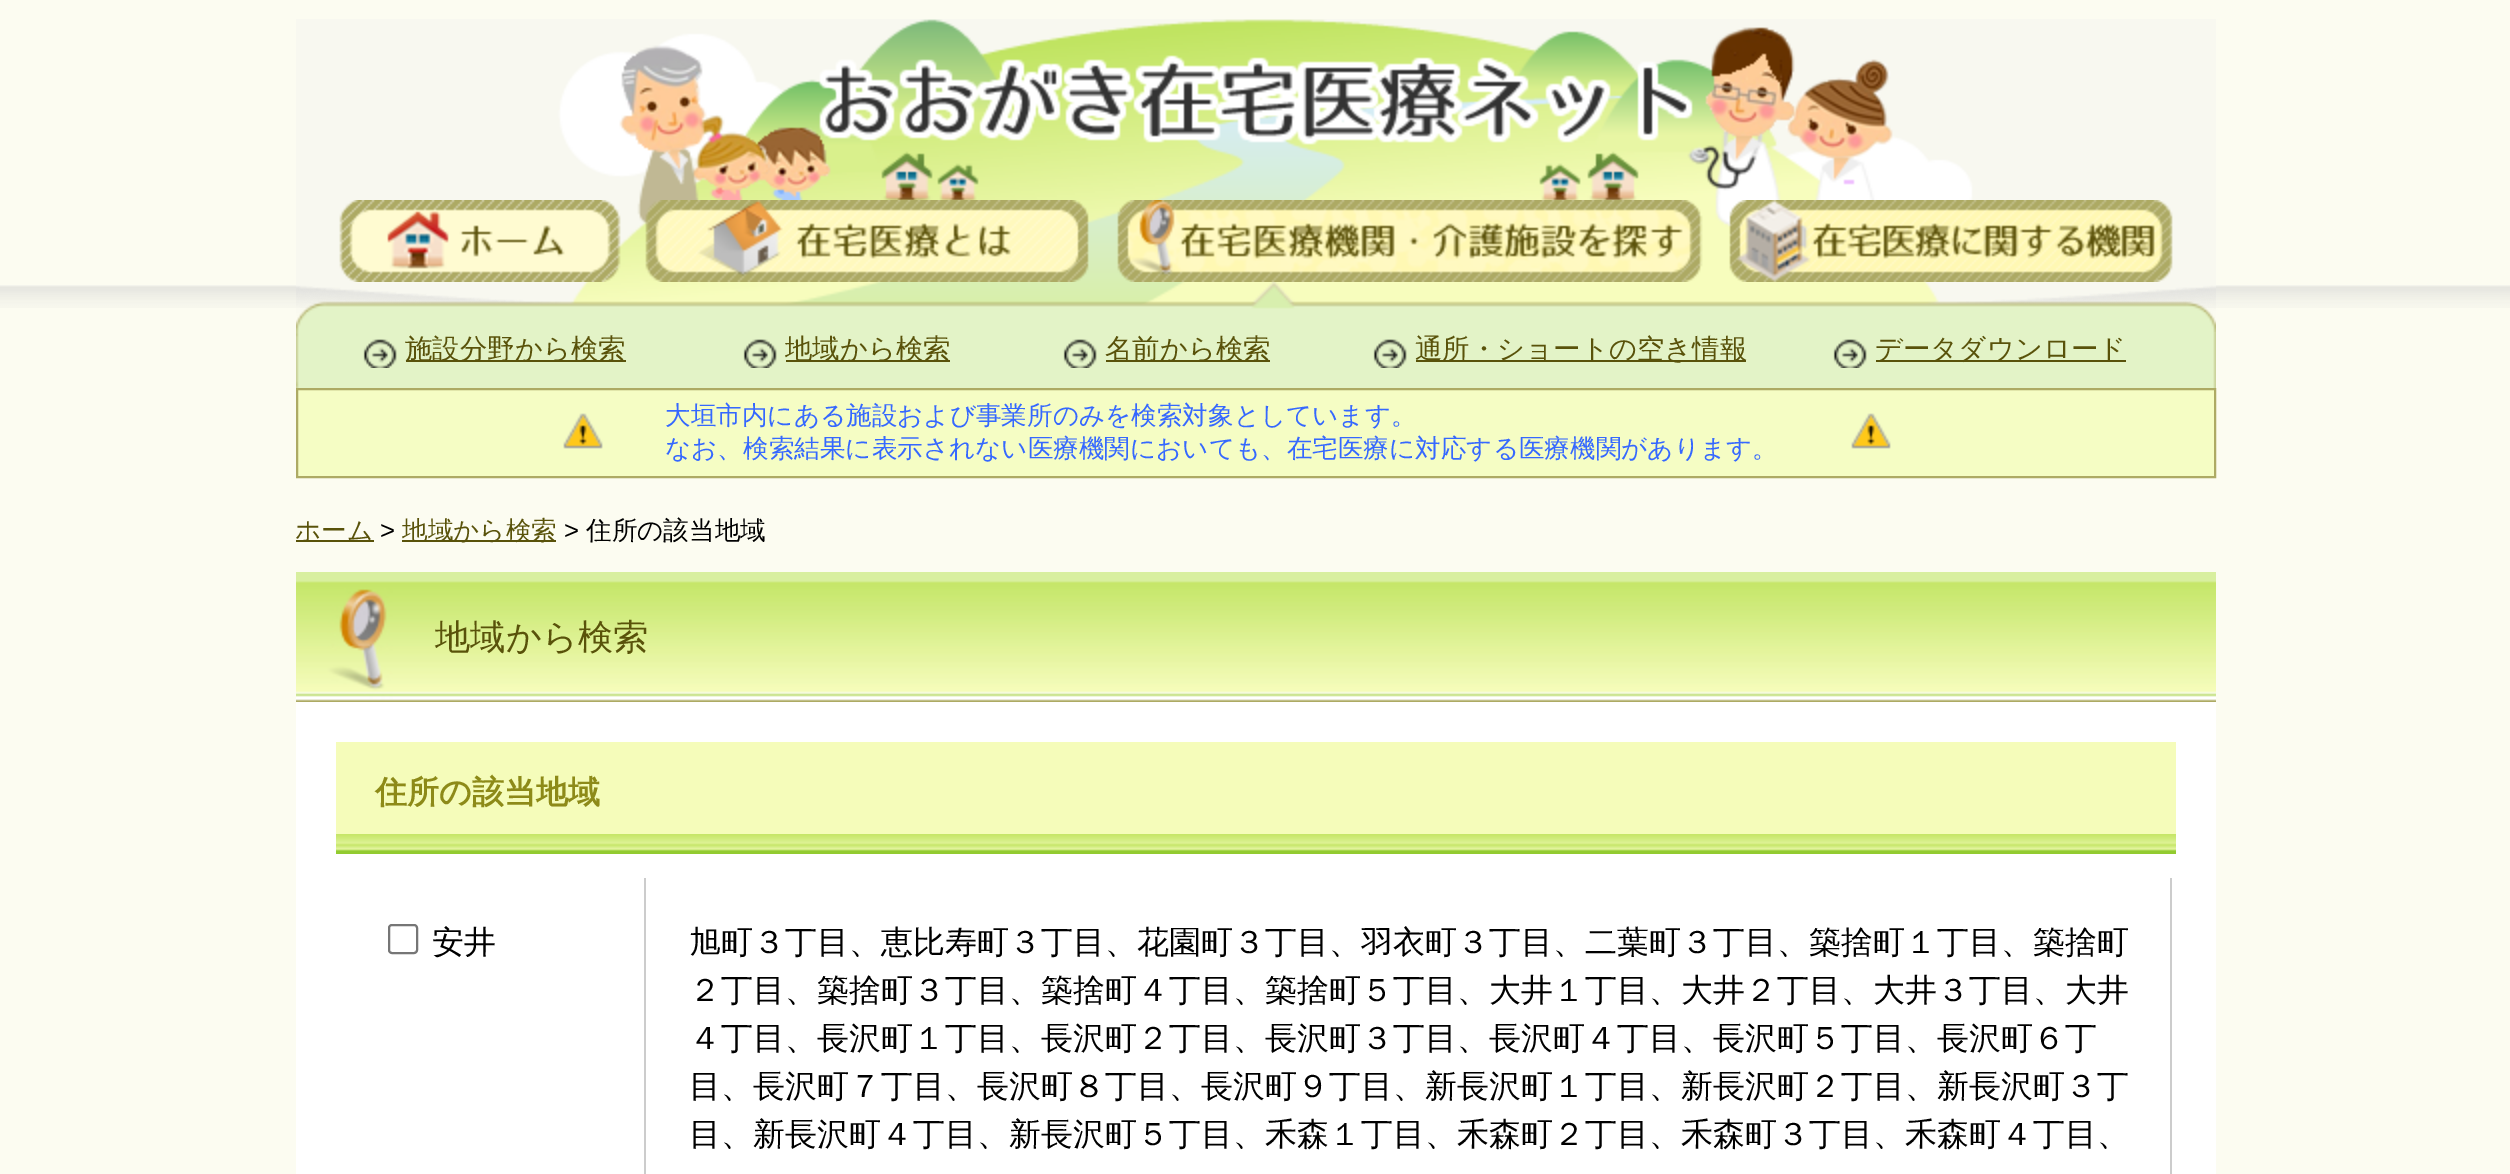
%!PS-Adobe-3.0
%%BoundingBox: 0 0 2510 1174
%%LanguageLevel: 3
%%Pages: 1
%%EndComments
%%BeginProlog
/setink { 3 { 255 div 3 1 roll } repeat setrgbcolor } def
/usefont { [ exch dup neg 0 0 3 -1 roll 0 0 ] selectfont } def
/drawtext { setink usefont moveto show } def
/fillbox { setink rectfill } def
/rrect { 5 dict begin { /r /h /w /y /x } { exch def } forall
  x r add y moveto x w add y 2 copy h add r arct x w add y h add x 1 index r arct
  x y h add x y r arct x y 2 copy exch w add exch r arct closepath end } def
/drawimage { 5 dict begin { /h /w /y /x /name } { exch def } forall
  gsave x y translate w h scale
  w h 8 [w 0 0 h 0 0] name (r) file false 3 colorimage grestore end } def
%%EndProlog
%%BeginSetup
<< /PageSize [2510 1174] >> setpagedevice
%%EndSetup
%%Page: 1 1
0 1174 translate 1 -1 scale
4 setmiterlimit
0 0 2510 1174 252 252 241 fillbox
(assets/img1.rgb) 0 285 2510 23 drawimage
(assets/img2.rgb) 296 19 1920 297 drawimage
(assets/img3.rgb) 819 55 874 90 drawimage
(assets/img4.rgb) 339 200 282 82 drawimage
(assets/img5.rgb) 645 200 444 82 drawimage
(assets/img6.rgb) 1117 200 586 82 drawimage
(assets/img7.rgb) 1729 200 444 82 drawimage
(assets/img8.rgb) 296 282 1920 50 drawimage
(assets/img9.rgb) 296 332 1920 56 drawimage
(assets/img10.rgb) 363 339 34 29 drawimage
406 360 220 2 89 82 10 fillbox
(施設分野から検索) 405 358 /WenQuanYiZenHei-Medium 27.4 89 82 10 drawtext
(assets/img11.rgb) 743 339 34 29 drawimage
786 360 164 2 89 82 10 fillbox
(地域から検索) 785 358 /WenQuanYiZenHei-Medium 27.4 89 82 10 drawtext
(assets/img12.rgb) 1063 339 34 29 drawimage
1106 360 164 2 89 82 10 fillbox
(名前から検索) 1105 358 /WenQuanYiZenHei-Medium 27.4 89 82 10 drawtext
(assets/img10.rgb) 1373 339 34 29 drawimage
1416 360 330 2 89 82 10 fillbox
(通所・ショートの空き情報) 1415 358 /WenQuanYiZenHei-Medium 27.4 89 82 10 drawtext
(assets/img12.rgb) 1833 339 34 29 drawimage
1876 360 250 2 89 82 10 fillbox
(データダウンロード) 1875 358 /WenQuanYiZenHei-Medium 27.4 89 82 10 drawtext
245 253 196 setink
297 389 moveto 2215 389 lineto 2215 477 lineto 297 477 lineto closepath gsave fill grestore
173 170 100 setink
2 setlinewidth
stroke
(assets/img13.rgb) 563 413 40 36 drawimage
(大垣市内にある施設および事業所のみを検索対象としています。) 665 424 /WenQuanYiZenHei-Medium 25.6 53 104 255 drawtext
(assets/img13.rgb) 1851 413 40 36 drawimage
(なお、検索結果に表示されない医療機関においても、在宅医療に対応する医療機関があります。) 665 457 /WenQuanYiZenHei-Medium 25.6 53 104 255 drawtext
296 540 78 2 89 82 10 fillbox
(ホーム) 295 539 /WenQuanYiZenHei-Medium 25.6 89 82 10 drawtext
(>) 380 539 /LiberationSans-Regular 25.6 0 0 0 drawtext
402 540 154 2 89 82 10 fillbox
(地域から検索) 402 539 /WenQuanYiZenHei-Medium 25.6 89 82 10 drawtext
(>) 564 539 /LiberationSans-Regular 25.6 0 0 0 drawtext
(住所の該当地域) 586 539 /WenQuanYiZenHei-Medium 25.6 0 0 0 drawtext
(assets/img14.rgb) 296 572 1920 130 drawimage
(地域から検索) 435 649 /WenQuanYiZenHei-Medium 35.25 89 82 10 drawtext
296 702 1920 472 255 255 255 fillbox
336 742 1840 92 245 252 186 fillbox
(assets/img15.rgb) 336 834 1840 20 drawimage
(住所の該当地域) 375 803 /WenQuanYiZenHei-Bold 32 141 138 24 drawtext
644 878 2 296 204 204 204 fillbox
118 118 118 setink
389 925 28 28 3 rrect stroke
(安井) 432 953 /WenQuanYiZenHei-Medium 32 0 0 0 drawtext
2170 878 2 296 204 204 204 fillbox
(旭町３丁目、恵比寿町３丁目、花園町３丁目、羽衣町３丁目、二葉町３丁目、築捨町１丁目、築捨町) 689 953 /WenQuanYiZenHei-Medium 32 0 0 0 drawtext
(２丁目、築捨町３丁目、築捨町４丁目、築捨町５丁目、大井１丁目、大井２丁目、大井３丁目、大井) 689 1001 /WenQuanYiZenHei-Medium 32 0 0 0 drawtext
(４丁目、長沢町１丁目、長沢町２丁目、長沢町３丁目、長沢町４丁目、長沢町５丁目、長沢町６丁) 689 1049 /WenQuanYiZenHei-Medium 32 0 0 0 drawtext
(目、長沢町７丁目、長沢町８丁目、長沢町９丁目、新長沢町１丁目、新長沢町２丁目、新長沢町３丁) 689 1097 /WenQuanYiZenHei-Medium 32 0 0 0 drawtext
(目、新長沢町４丁目、新長沢町５丁目、禾森１丁目、禾森町２丁目、禾森町３丁目、禾森町４丁目、) 689 1145 /WenQuanYiZenHei-Medium 32 0 0 0 drawtext
showpage
%%EOF
